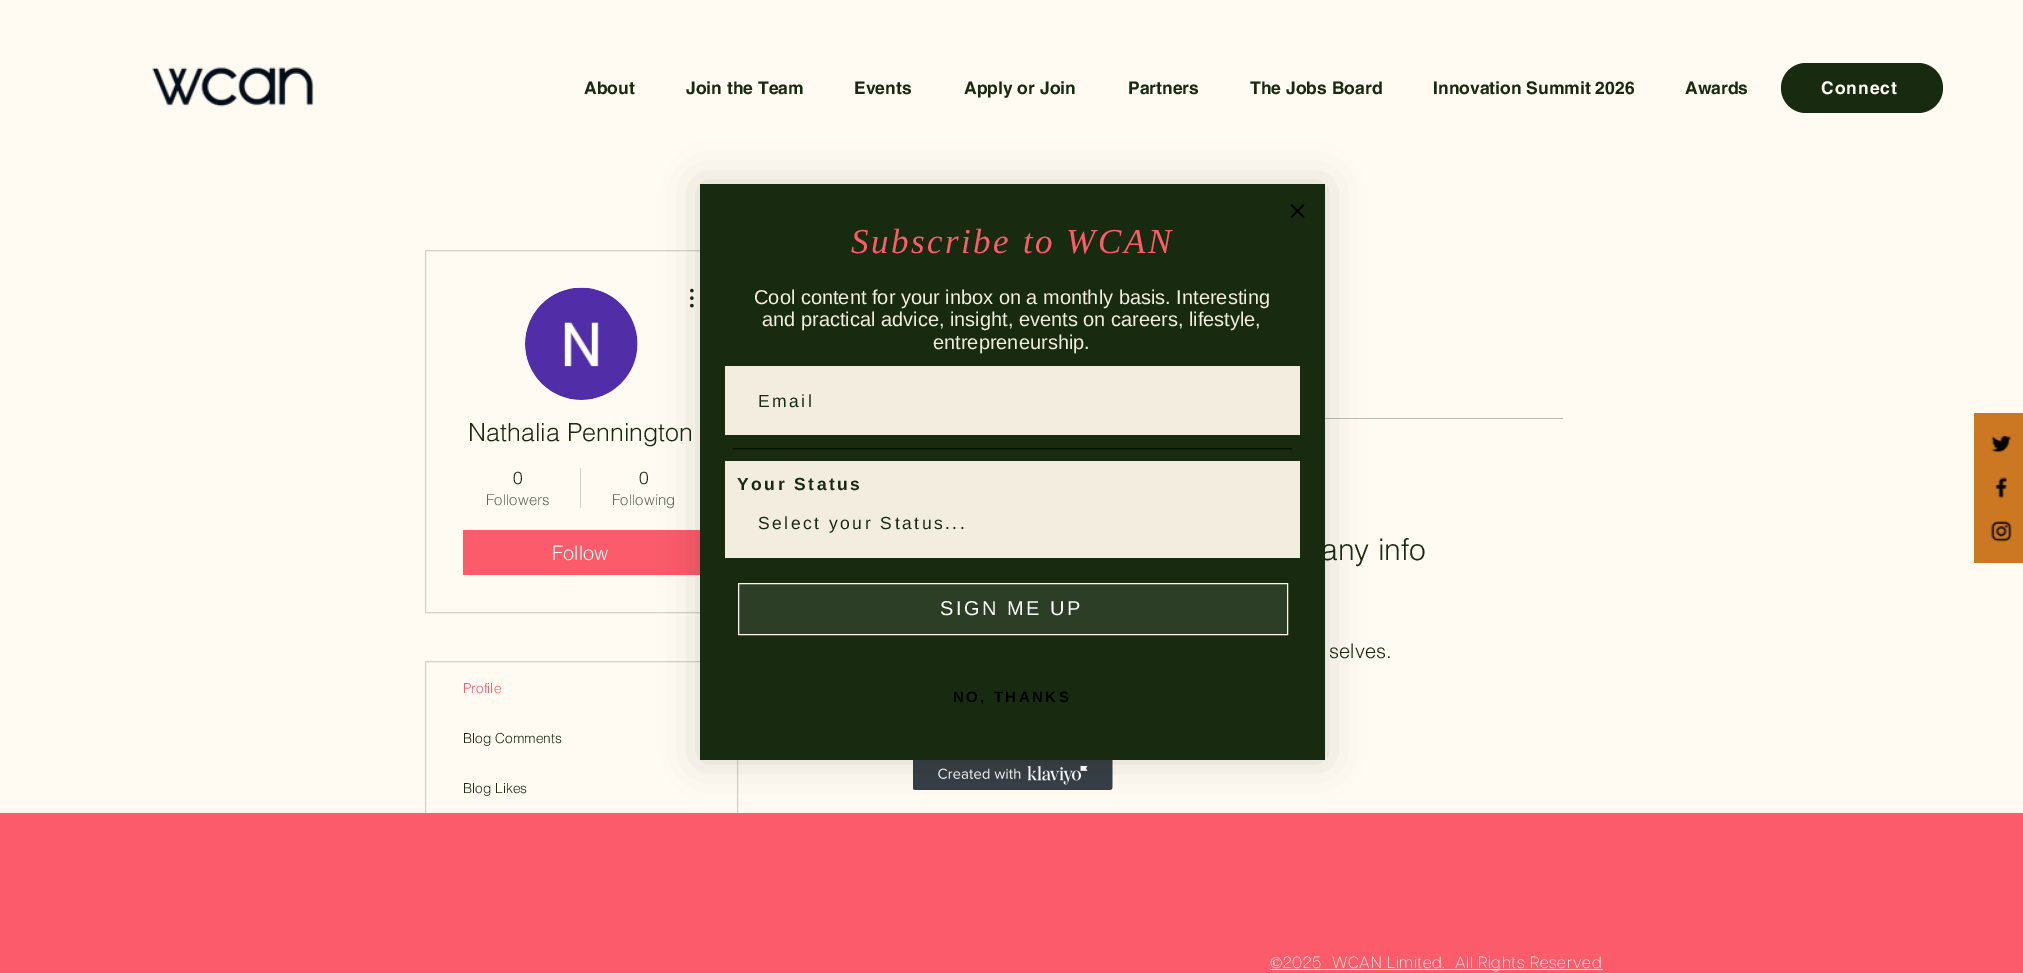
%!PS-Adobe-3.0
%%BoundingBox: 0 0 2023 973
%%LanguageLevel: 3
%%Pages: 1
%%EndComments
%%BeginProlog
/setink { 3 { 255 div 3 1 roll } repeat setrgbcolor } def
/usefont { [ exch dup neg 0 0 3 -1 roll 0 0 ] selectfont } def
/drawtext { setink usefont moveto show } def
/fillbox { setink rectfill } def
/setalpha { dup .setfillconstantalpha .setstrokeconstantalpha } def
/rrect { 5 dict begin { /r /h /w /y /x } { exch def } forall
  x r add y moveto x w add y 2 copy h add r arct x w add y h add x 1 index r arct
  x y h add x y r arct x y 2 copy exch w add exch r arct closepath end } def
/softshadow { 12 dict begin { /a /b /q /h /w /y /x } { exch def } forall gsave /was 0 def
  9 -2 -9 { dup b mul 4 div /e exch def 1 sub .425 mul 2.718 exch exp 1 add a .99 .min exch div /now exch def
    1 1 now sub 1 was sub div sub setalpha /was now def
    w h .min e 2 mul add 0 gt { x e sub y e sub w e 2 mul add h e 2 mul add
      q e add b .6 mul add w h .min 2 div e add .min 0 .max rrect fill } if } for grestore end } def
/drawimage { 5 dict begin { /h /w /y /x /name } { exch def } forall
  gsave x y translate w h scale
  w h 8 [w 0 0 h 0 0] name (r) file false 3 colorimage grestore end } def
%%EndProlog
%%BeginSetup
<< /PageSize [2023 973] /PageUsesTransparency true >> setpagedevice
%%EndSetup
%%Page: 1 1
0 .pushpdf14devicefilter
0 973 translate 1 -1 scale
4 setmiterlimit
0 0 2023 973 255 251 243 fillbox
(assets/img1.rgb) 152 67 162 40 drawimage
(About) 584 94 /helvetica-Bold 17.5 24 43 17 drawtext
(Join the Team) 686 94 /helvetica-Bold 17.5 24 43 17 drawtext
(Events) 854 94 /helvetica-Bold 17.5 24 43 17 drawtext
(Apply or Join) 964 94 /helvetica-Bold 17.5 24 43 17 drawtext
(Partners) 1128 94 /helvetica-Bold 17.5 24 43 17 drawtext
(The Jobs Board) 1250 94 /helvetica-Bold 17.5 24 43 17 drawtext
(Innovation Summit 2026) 1433 94 /helvetica-Bold 17.5 24 43 17 drawtext
(Awards) 1685 94 /helvetica-Bold 17.5 24 43 17 drawtext
1781 63 162 50 25 rrect fill
255 251 243 setink
1821 94 moveto 1 0 (Connect) ashow
209 209 198 setink
425.5 250.5 312 362 rectstroke
216 216 216 setink
525 288 113 112 56 rrect fill
(assets/img2.rgb) 525 287 113 113 drawimage
(assets/img3.rgb) 690 288 4 20 drawimage
(Nathalia Pennington) 468 441 /helvetica-Light 25 24 43 17 drawtext
(0) 513 484 /helvetica-Light 17.5 24 43 17 drawtext
(Followers) 486 505 /helvetica-Light 15 93 105 85 drawtext
580 468 1 40 209 209 198 fillbox
(0) 639 484 /helvetica-Light 17.5 24 43 17 drawtext
(Following) 612 505 /helvetica-Light 15 93 105 85 drawtext
463 530 237 45 251 91 106 fillbox
(Follow) 552 560 /helvetica-Light 20 255 251 243 drawtext
209 209 198 setink
425.5 661.5 312 152 rectstroke
(Profile) 463 693 /helvetica-Light 13.75 251 91 106 drawtext
(Blog Comments) 463 743 /helvetica-Light 13.75 24 43 17 drawtext
(Blog Likes) 463 793 /helvetica-Light 13.75 24 43 17 drawtext
1325 418 238 1 186 189 175 fillbox
(any info) 1321 560 /helvetica-Light 30 24 43 17 drawtext
(selves.) 1329 658 /helvetica-Light 20 24 43 17 drawtext
1974 413 49 150 204 119 34 fillbox
(assets/img4.rgb) 1991 435 21 18 drawimage
(assets/img5.rgb) 1995 477 12 21 drawimage
(assets/img6.rgb) 1990 521 22 21 drawimage
0 813 2023 160 251 91 106 fillbox
/LiberationSerif-Regular 16.25 usefont
255 251 243 setink
1270 968 moveto 0.8 0 (©) ashow
/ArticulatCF-ExtraLight 16.25 usefont
1283 968 moveto 0.8 0 (2025) ashow
1332 968 moveto 0.8 0 (WCAN Limited.) ashow
1270 969 333 1 255 251 243 fillbox
1455 968 moveto 0.8 0 (All Rights Reserved) ashow
(assets/img8.rgb) 913 760 200 30 drawimage
0 0 0 setink
700 184 625 576 0 19 0.15 softshadow
700 184 625 576 24 43 17 fillbox
0 0 0 setink
1.5 setlinewidth
1 setlinecap
1 setlinejoin
1291.5 205 moveto 1303.5 217 lineto 1291.5 217 moveto 1303.5 205 lineto closepath stroke
/LiberationSerif-Italic 35 usefont
251 91 106 setink
851 253 moveto 2.5 0 (Subscribe to WCAN) ashow
(Cool content for your inbox on a monthly basis. Interesting) 754 304 /LiberationSans-Regular 20 243 237 224 drawtext
(and practical advice, insight, events on careers, lifestyle,) 762 326 /LiberationSans-Regular 20 243 237 224 drawtext
(entrepreneurship.) 933 349 /LiberationSans-Regular 20 243 237 224 drawtext
725 366 575 69 243 237 224 fillbox
/LiberationSans-Regular 17.5 usefont
24 43 17 setink
758 407 moveto 2.5 0 (Email) ashow
(assets/img7.rgb) 732 448 561 2 drawimage
725 461 575 97 243 237 224 fillbox
/LiberationSans-Bold 17.5 usefont
24 43 17 setink
737 490 moveto 2.5 0 (Your Status) ashow
/LiberationSans-Regular 17.5 usefont
758 529 moveto 2.5 0 (Select your Status...) ashow
45 62 38 setink
738.5 583.5 moveto 1287.5 583.5 lineto 1287.5 634.5 lineto 738.5 634.5 lineto closepath gsave fill grestore
255 245 240 setink
1 setlinewidth
0 setlinecap
0 setlinejoin
stroke
/LiberationSans-Regular 20 usefont
255 255 255 setink
940 615 moveto 2.5 0 (SIGN ME UP) ashow
/LiberationSans-Bold 15 usefont
0 0 0 setink
953 702 moveto 2.5 0 (NO, THANKS) ashow
.poppdf14devicefilter showpage
%%EOF
